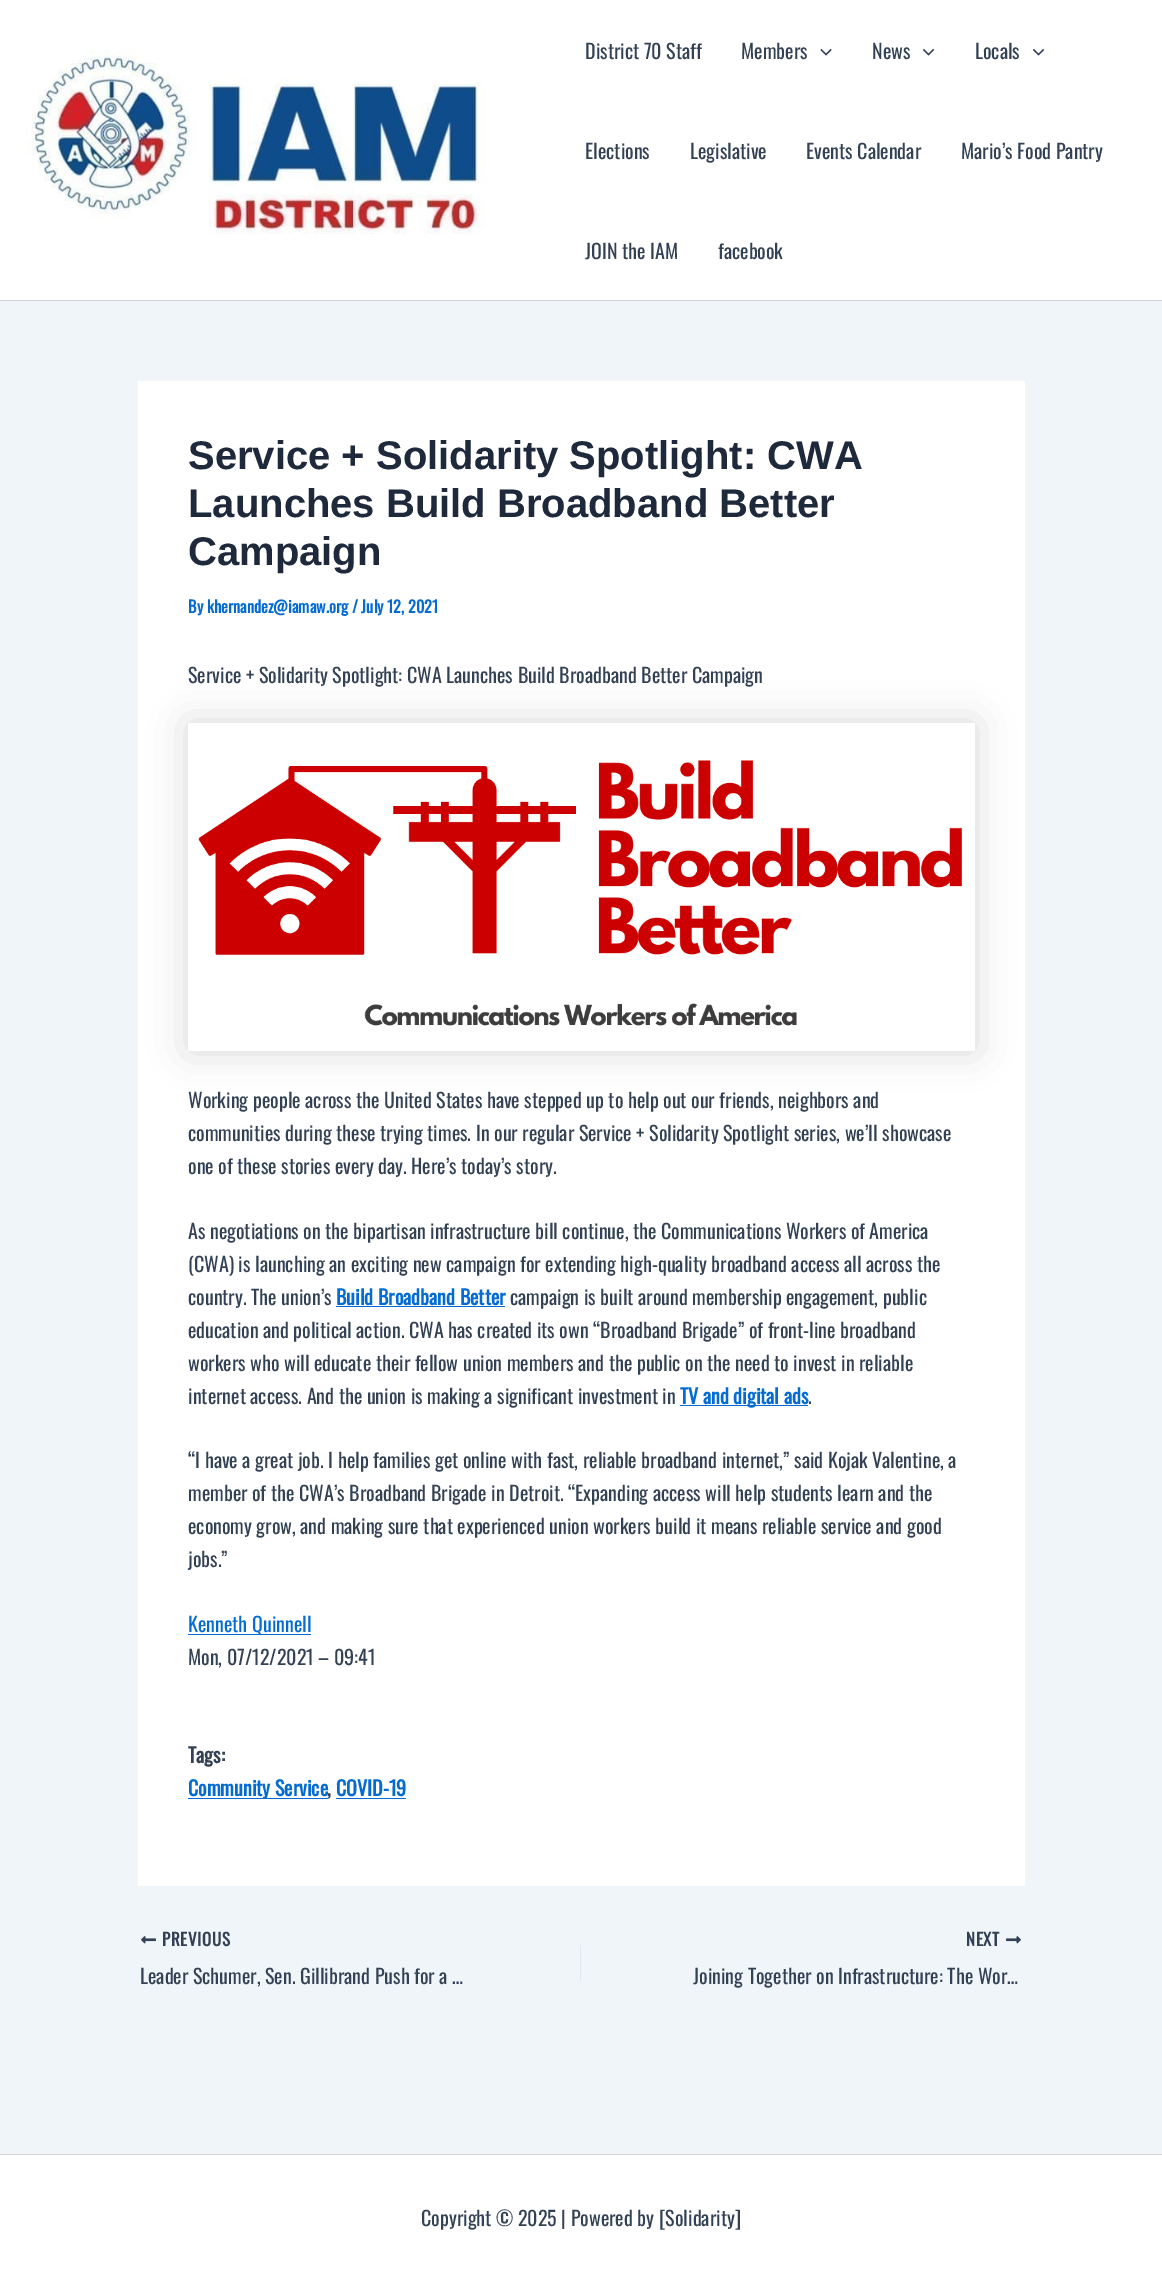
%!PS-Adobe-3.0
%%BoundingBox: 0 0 1162 2280
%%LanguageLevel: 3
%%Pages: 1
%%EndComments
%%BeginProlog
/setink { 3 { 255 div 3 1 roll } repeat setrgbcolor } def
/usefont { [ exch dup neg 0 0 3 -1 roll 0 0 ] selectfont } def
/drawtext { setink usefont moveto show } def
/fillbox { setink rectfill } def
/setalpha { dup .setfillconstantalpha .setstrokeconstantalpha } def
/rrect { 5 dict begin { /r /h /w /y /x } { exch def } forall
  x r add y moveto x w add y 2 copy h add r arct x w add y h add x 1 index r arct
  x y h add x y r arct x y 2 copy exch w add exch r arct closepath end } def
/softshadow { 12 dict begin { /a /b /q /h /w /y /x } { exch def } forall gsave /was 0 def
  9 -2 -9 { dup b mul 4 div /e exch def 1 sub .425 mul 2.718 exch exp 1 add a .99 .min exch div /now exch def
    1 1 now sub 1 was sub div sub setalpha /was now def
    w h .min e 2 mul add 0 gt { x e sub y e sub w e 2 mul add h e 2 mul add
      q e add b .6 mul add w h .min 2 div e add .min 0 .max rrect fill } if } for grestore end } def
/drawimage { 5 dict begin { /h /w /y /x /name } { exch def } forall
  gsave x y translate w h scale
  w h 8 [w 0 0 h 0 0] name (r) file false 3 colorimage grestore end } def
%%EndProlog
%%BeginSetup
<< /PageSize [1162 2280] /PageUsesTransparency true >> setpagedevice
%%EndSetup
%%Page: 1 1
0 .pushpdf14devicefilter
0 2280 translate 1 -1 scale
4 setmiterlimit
0 0 1162 2280 240 245 250 fillbox
0 0 1162 300 255 255 255 fillbox
0 300 1162 1 209 213 219 fillbox
(assets/img1.rgb) 25 50 460 184 drawimage
(District 70 Staff) 585 59 /Oswald-Regular 20 51 65 85 drawtext
(Members) 741 59 /Oswald-Regular 20 51 65 85 drawtext
(assets/img2.rgb) 820 48 12 8 drawimage
(News) 872 59 /Oswald-Regular 20 51 65 85 drawtext
(assets/img3.rgb) 923 48 12 8 drawimage
(Locals) 975 59 /Oswald-Regular 20 51 65 85 drawtext
(assets/img3.rgb) 1033 48 12 8 drawimage
(Elections) 585 159 /Oswald-Regular 20 51 65 85 drawtext
(Legislative) 690 159 /Oswald-Regular 20 51 65 85 drawtext
(Events Calendar) 806 159 /Oswald-Regular 20 51 65 85 drawtext
(Mario’s Food Pantry) 961 159 /Oswald-Regular 20 51 65 85 drawtext
(JOIN the IAM) 585 259 /Oswald-Regular 20 51 65 85 drawtext
(facebook) 718 259 /Oswald-Regular 20 51 65 85 drawtext
138 381 887 1505 255 255 255 fillbox
(Service + Solidarity Spotlight: CWA) 188 469 /LiberationSans-Bold 40 30 41 59 drawtext
(Launches Build Broadband Better) 188 517 /LiberationSans-Bold 40 30 41 59 drawtext
(Campaign) 188 565 /LiberationSans-Bold 40 30 41 59 drawtext
(By khernandez@iamaw.org / July 12, 2021) 188 613 /Oswald-Bold 16.25 4 107 210 drawtext
gsave
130 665 moveto 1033 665 lineto 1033 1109 lineto 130 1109 lineto closepath 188 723 moveto 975 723 lineto 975 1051 lineto 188 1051 lineto closepath eoclip newpath
0 0 0 setink
188 723 787 328 0 19 0.15 softshadow
grestore
(assets/img4.rgb) 198 760 764 266 drawimage
(Service + Solidarity Spotlight: CWA Launches Build Broadband Better Campaign) 188 683 /Oswald-Regular 20 51 65 85 drawtext
(Working people across the United States have stepped up to help out our friends, neighbors and) 188 1108 /Oswald-Regular 20 51 65 85 drawtext
(communities during these trying times. In our regular Service + Solidarity Spotlight series, we’ll showcase) 188 1141 /Oswald-Regular 20 51 65 85 drawtext
(one of these stories every day. Here’s today’s story.) 188 1174 /Oswald-Regular 20 51 65 85 drawtext
(As negotiations on the bipartisan infrastructure bill continue, the Communications Workers of America) 188 1239 /Oswald-Regular 20 51 65 85 drawtext
(\(CWA\) is launching an exciting new campaign for extending high-quality broadband access all across the) 188 1272 /Oswald-Regular 20 51 65 85 drawtext
(country. The union’s) 188 1305 /Oswald-Regular 20 51 65 85 drawtext
(Build Broadband Better) 336 1305 /Oswald-Bold 20 4 107 210 drawtext
336 1306 169 1 4 107 210 fillbox
(campaign is built around membership engagement, public) 510 1305 /Oswald-Regular 20 51 65 85 drawtext
(education and political action. CWA has created its own “Broadband Brigade” of front-line broadband) 188 1338 /Oswald-Regular 20 51 65 85 drawtext
(workers who will educate their fellow union members and the public on the need to invest in reliable) 188 1371 /Oswald-Regular 20 51 65 85 drawtext
(internet access. And the union is making a significant investment in) 188 1404 /Oswald-Regular 20 51 65 85 drawtext
680 1405 128 1 4 107 210 fillbox
(TV and digital ads) 680 1404 /Oswald-Bold 20 4 107 210 drawtext
(.) 808 1404 /Oswald-Regular 20 51 65 85 drawtext
(“I have a great job. I help families get online with fast, reliable broadband internet,” said Kojak Valentine, a) 188 1468 /Oswald-Regular 20 51 65 85 drawtext
(member of the CWA’s Broadband Brigade in Detroit. “Expanding access will help students learn and the) 188 1501 /Oswald-Regular 20 51 65 85 drawtext
(economy grow, and making sure that experienced union workers build it means reliable service and good) 188 1534 /Oswald-Regular 20 51 65 85 drawtext
(jobs.”) 188 1567 /Oswald-Regular 20 51 65 85 drawtext
188 1634 123 1 4 107 210 fillbox
(Kenneth Quinnell) 188 1632 /Oswald-Regular 20 4 107 210 drawtext
(Mon, 07/12/2021 – 09:41) 188 1665 /Oswald-Regular 20 51 65 85 drawtext
(Tags:) 188 1763 /Oswald-Bold 20 51 65 85 drawtext
188 1798 140 1 4 107 210 fillbox
(Community Service) 188 1796 /Oswald-Bold 20 4 107 210 drawtext
(,) 327 1796 /Oswald-Bold 20 51 65 85 drawtext
336 1798 70 1 4 107 210 fillbox
(COVID-19) 336 1796 /Oswald-Bold 20 4 107 210 drawtext
(assets/img5.rgb) 141 1936 15 8 drawimage
/Oswald-Bold 17 usefont
51 65 85 setink
162 1946 moveto 0.75 0 (PREVIOUS) ashow
(Leader Schumer, Sen. Gillibrand Push for a …) 140 1984 /Oswald-Regular 20 51 65 85 drawtext
580 1945 1 36 225 232 237 fillbox
/Oswald-Bold 17 usefont
51 65 85 setink
966 1946 moveto 0.75 0 (NEXT) ashow
(assets/img6.rgb) 1006 1936 15 8 drawimage
gsave
693 1959 330 34 rectclip
(Joining Together on Infrastructure: The Wor…) 693 1984 /Oswald-Regular 20 51 65 85 drawtext
grestore
0 2155 1162 125 255 255 255 fillbox
0 2154 1162 1 209 213 219 fillbox
(Copyright © 2025 | Powered by [Solidarity]) 421 2226 /Oswald-Regular 20 51 65 85 drawtext
.poppdf14devicefilter showpage
%%EOF
